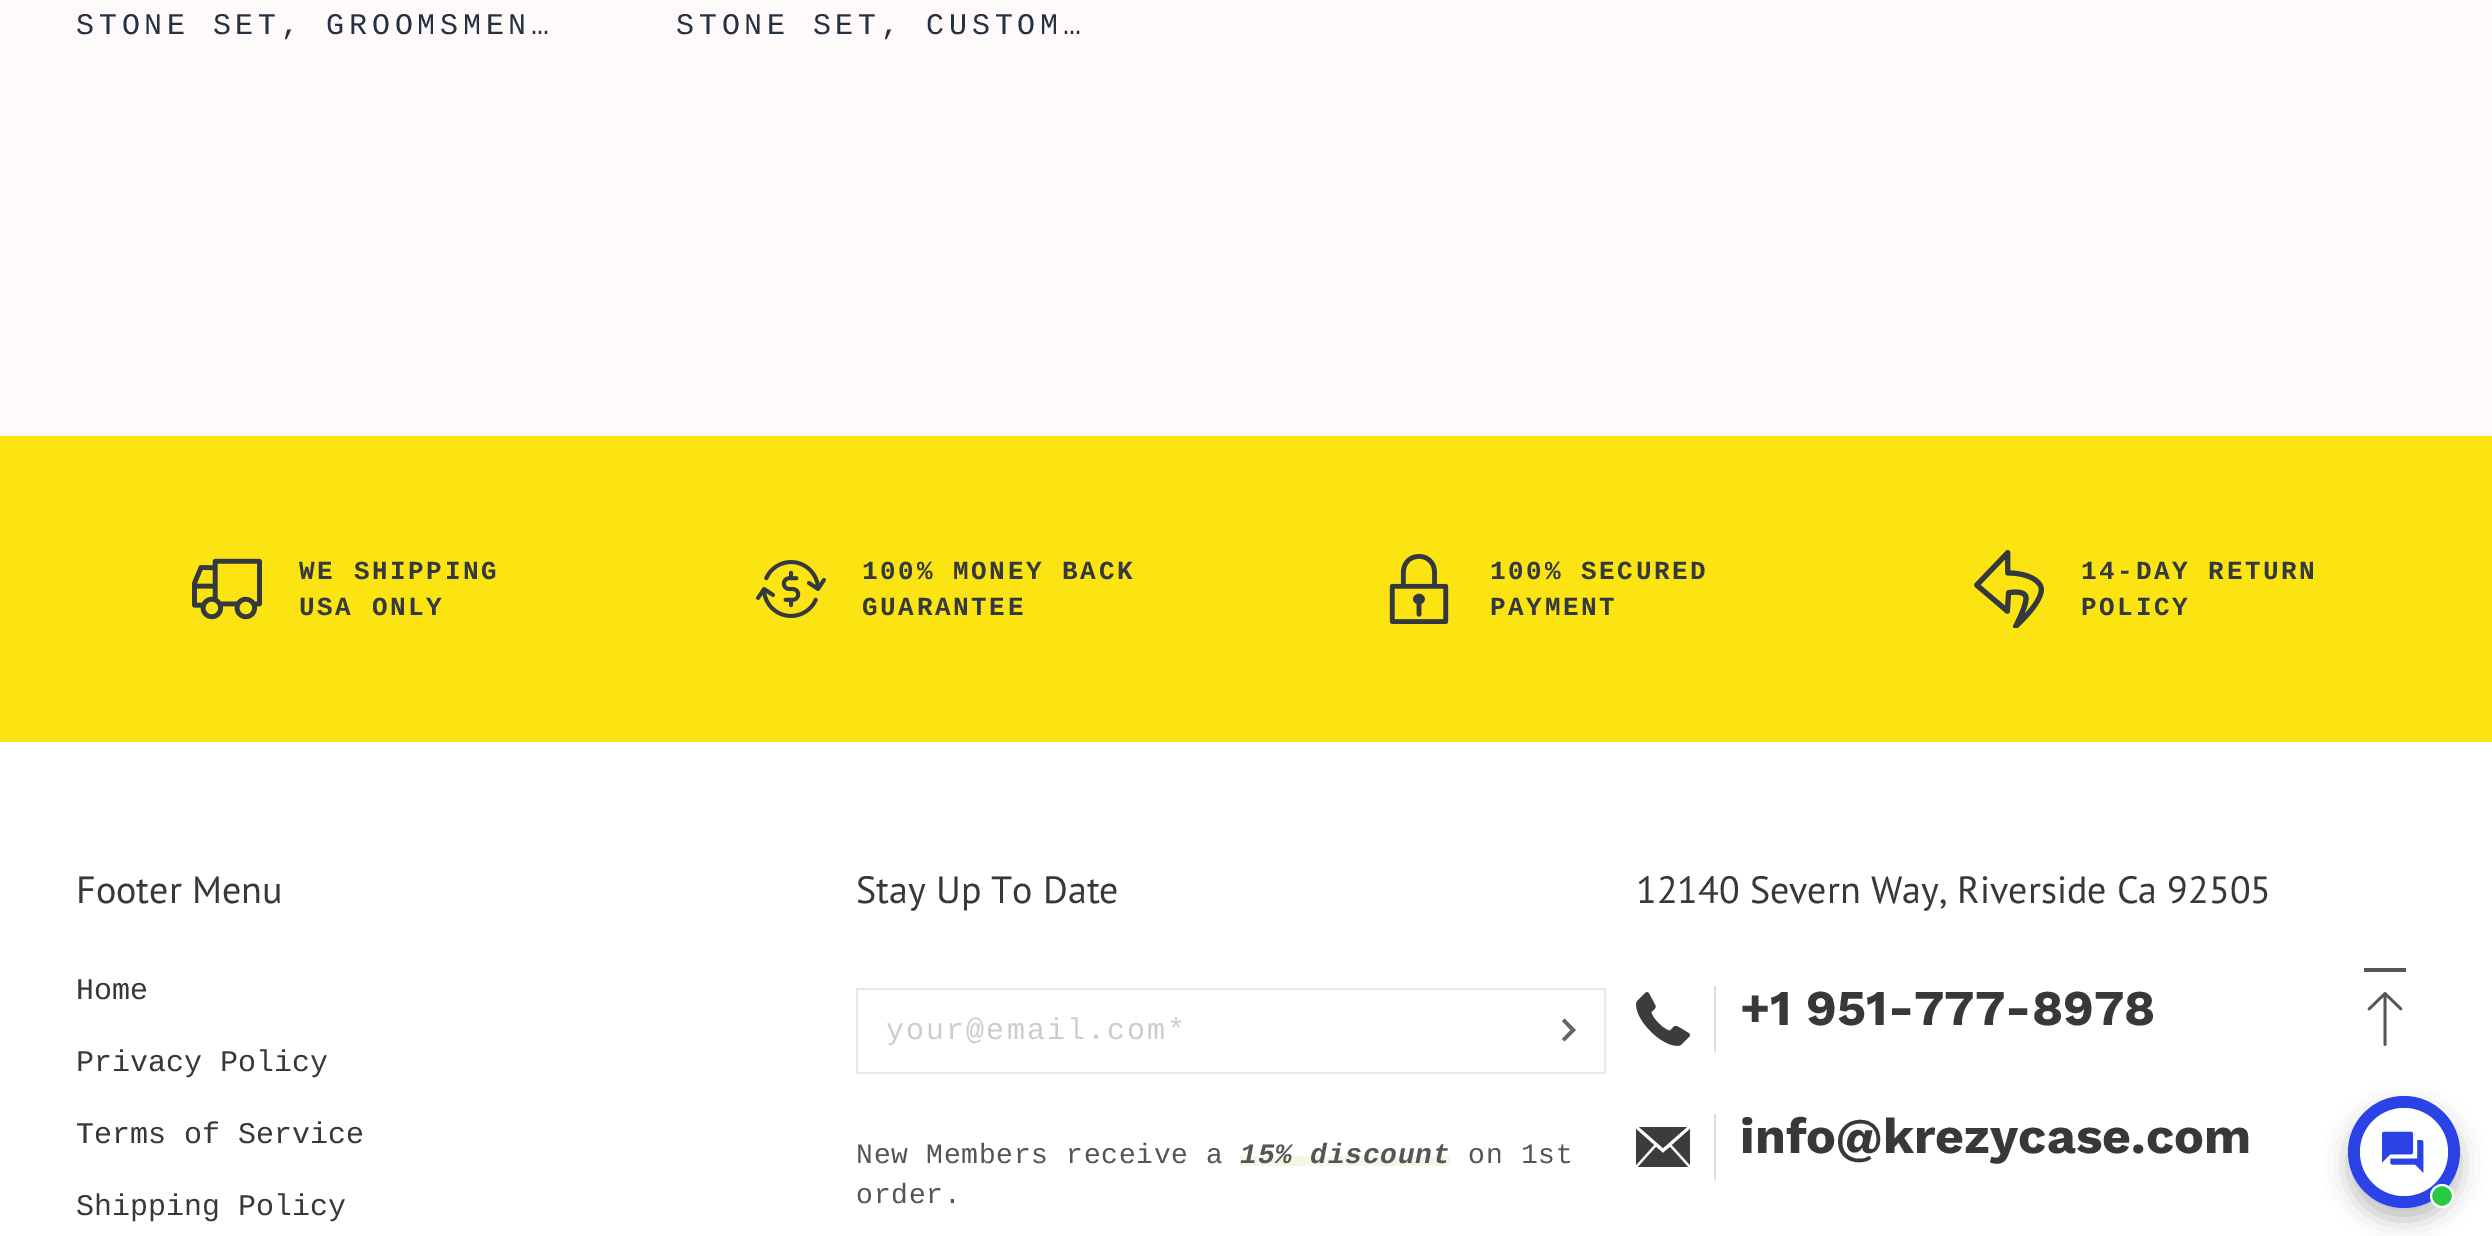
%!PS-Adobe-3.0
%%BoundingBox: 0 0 2492 1236
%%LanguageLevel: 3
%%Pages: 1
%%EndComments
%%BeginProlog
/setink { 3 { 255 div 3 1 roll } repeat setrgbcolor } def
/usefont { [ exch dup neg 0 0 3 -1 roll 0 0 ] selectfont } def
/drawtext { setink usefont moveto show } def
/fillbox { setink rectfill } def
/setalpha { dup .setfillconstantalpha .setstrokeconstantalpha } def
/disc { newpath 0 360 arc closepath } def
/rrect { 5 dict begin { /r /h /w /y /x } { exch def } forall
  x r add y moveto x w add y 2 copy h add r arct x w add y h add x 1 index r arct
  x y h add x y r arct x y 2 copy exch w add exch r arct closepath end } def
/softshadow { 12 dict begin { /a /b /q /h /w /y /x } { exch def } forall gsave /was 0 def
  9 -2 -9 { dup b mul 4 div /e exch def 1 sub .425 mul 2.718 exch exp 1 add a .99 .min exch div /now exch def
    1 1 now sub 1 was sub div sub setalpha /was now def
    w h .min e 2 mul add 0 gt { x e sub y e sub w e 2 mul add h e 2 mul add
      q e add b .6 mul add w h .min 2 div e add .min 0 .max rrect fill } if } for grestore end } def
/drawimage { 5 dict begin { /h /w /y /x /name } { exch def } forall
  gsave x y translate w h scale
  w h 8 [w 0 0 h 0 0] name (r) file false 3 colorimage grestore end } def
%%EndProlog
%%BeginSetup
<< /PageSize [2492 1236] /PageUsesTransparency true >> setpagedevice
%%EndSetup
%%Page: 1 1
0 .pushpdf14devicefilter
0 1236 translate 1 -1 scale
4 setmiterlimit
0 0 2492 1236 255 250 250 fillbox
/LiberationMono-Regular 30 usefont
36 49 66 setink
76 34 moveto 4.75 0 (STONE SET, GROOMSMEN…) ashow
676 34 moveto 4.75 0 (STONE SET, CUSTOM…) ashow
0 436 2492 306 252 227 18 fillbox
(assets/img1.rgb) 192 558 70 62 drawimage
/LiberationMono-Bold 26 usefont
51 57 62 setink
299 579 moveto 2.6 0 (WE SHIPPING) ashow
299 615 moveto 2.6 0 (USA ONLY) ashow
(assets/img2.rgb) 756 560 70 58 drawimage
862 579 moveto 2.6 0 (100% MONEY BACK) ashow
862 615 moveto 2.6 0 (GUARANTEE) ashow
(assets/img3.rgb) 1389 554 60 70 drawimage
1490 579 moveto 2.6 0 (100% SECURED) ashow
1490 615 moveto 2.6 0 (PAYMENT) ashow
(assets/img4.rgb) 1974 550 70 78 drawimage
2081 579 moveto 2.6 0 (14-DAY RETURN) ashow
2081 615 moveto 2.6 0 (POLICY) ashow
0 742 2492 494 255 255 255 fillbox
(Footer Menu) 76 903 /PTSans-Regular 38 56 56 56 drawtext
(Home) 76 999 /LiberationMono-Regular 30 56 56 56 drawtext
(Privacy Policy) 76 1071 /LiberationMono-Regular 30 56 56 56 drawtext
(Terms of Service) 76 1143 /LiberationMono-Regular 30 56 56 56 drawtext
(Shipping Policy) 76 1215 /LiberationMono-Regular 30 56 56 56 drawtext
(Stay Up To Date) 856 903 /PTSans-Regular 38 56 56 56 drawtext
233 233 233 setink
2 setlinewidth
857 989 748 84 rectstroke
/LiberationMono-Regular 30 usefont
204 204 204 setink
886 1039 moveto 2.1 0 (your@email.com*) ashow
102 102 102 setink
1564.5 1041.5 moveto 1576 1030 lineto 1564.5 1018.5 lineto 1562 1021 lineto 1570.5 1030 lineto 1562 1039 lineto closepath eofill
/LiberationMono-Regular 28 usefont
85 85 85 setink
856 1163 moveto 0.7 0 (New Members receive a) ashow
1240 1156 210 10 247 245 229 fillbox
/LiberationMono-BoldItalic 28 usefont
85 85 85 setink
1240 1163 moveto 0.7 0 (15% discount) ashow
/LiberationMono-Regular 28 usefont
1468 1163 moveto 0.7 0 (on 1st) ashow
856 1203 moveto 0.7 0 (order.) ashow
(12140 Severn Way, Riverside Ca 92505) 1636 903 /PTSans-Regular 38 56 56 56 drawtext
1714 986 2 66 216 222 226 fillbox
(assets/img5.rgb) 1636 992 54 54 drawimage
(+1 951-777-8978) 1740 1025 /WorkSans-Bold 50 56 56 56 drawtext
1714 1114 2 66 216 222 226 fillbox
60 60 60 setink
1670 1147 moveto 1688 1167 lineto 1638 1167 lineto 1656 1147 lineto 1663 1153 lineto closepath 1687 1127 moveto 1639 1127 lineto 1663 1148 lineto closepath 1672 1145 moveto 1690 1165 lineto 1690 1129 lineto closepath 1636 1129 moveto 1636 1165 lineto 1654 1145 lineto closepath fill
(info@krezycase.com) 1740 1153 /WorkSans-Bold 50 56 56 56 drawtext
2364 968 42 4 87 87 87 fillbox
(assets/img6.rgb) 2367 992 36 54 drawimage
0 0 0 setink
2348 1108 112 112 56 12 0.25 softshadow
43 66 231 setink
2404 1152 56 disc fill
255 255 255 setink
2404 1152 44 disc fill
(assets/img7.rgb) 2382 1131 42 42 drawimage
39 202 64 setink
2442 1196 11 disc gsave fill grestore
255 255 255 setink
stroke
.poppdf14devicefilter showpage
%%EOF
